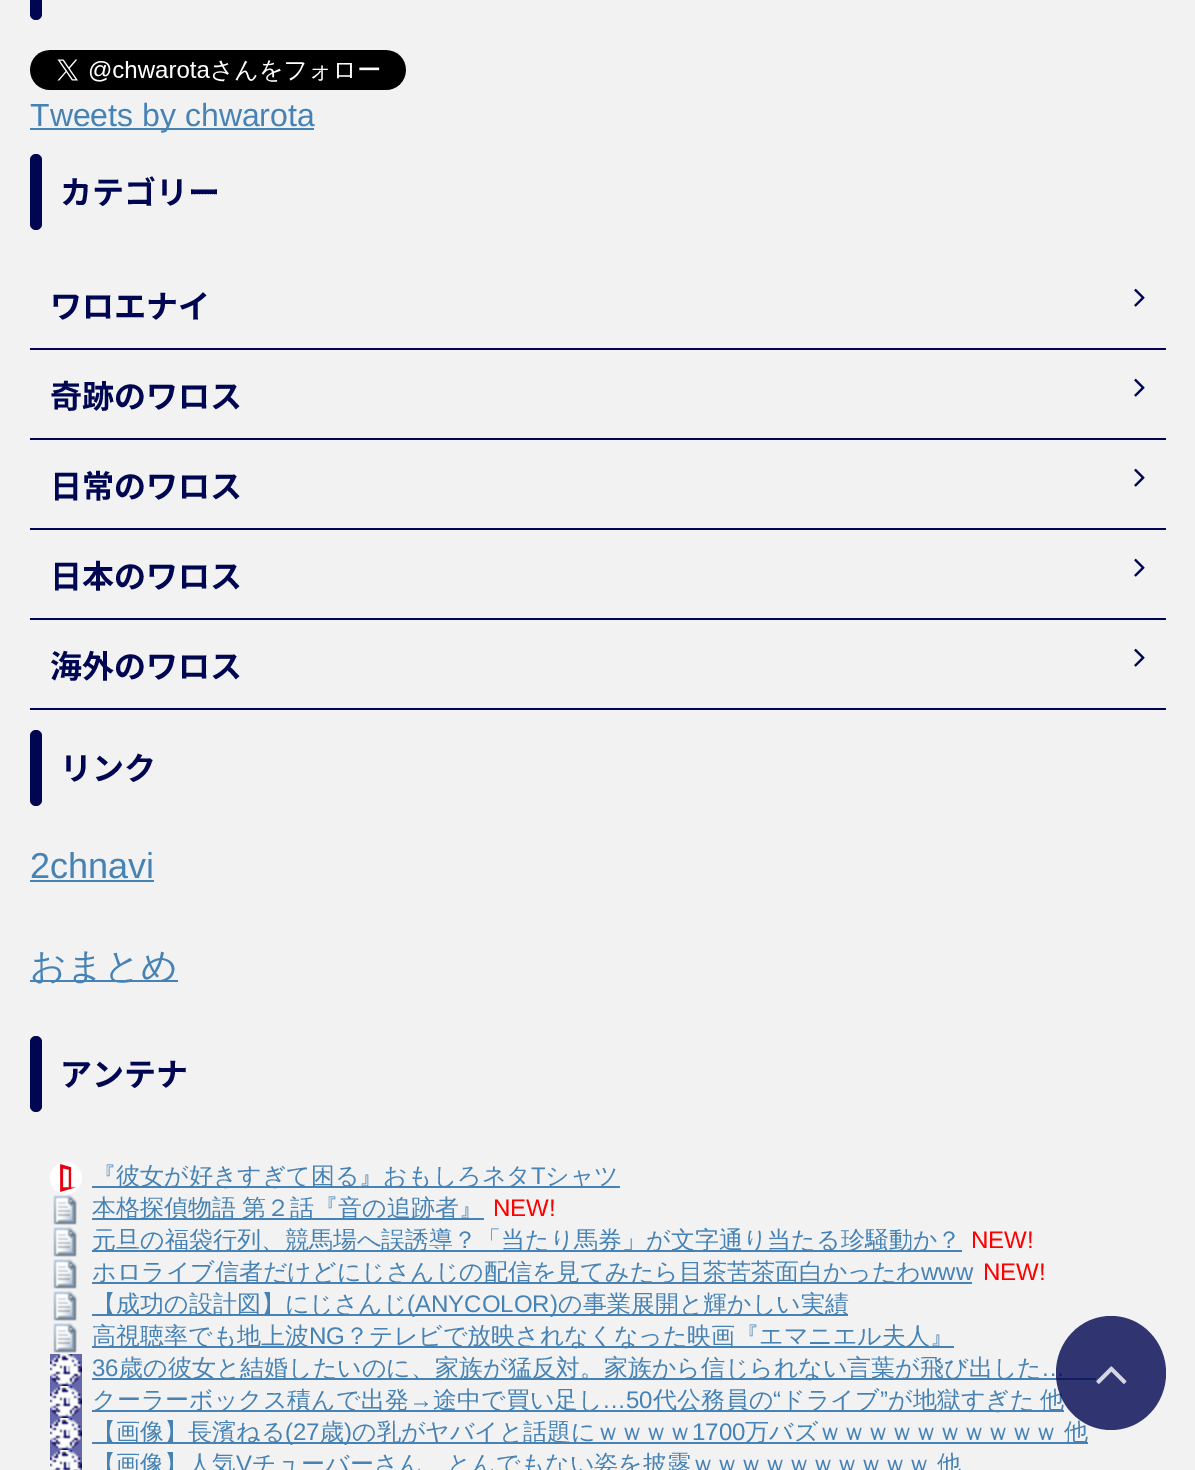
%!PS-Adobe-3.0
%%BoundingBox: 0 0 1195 1470
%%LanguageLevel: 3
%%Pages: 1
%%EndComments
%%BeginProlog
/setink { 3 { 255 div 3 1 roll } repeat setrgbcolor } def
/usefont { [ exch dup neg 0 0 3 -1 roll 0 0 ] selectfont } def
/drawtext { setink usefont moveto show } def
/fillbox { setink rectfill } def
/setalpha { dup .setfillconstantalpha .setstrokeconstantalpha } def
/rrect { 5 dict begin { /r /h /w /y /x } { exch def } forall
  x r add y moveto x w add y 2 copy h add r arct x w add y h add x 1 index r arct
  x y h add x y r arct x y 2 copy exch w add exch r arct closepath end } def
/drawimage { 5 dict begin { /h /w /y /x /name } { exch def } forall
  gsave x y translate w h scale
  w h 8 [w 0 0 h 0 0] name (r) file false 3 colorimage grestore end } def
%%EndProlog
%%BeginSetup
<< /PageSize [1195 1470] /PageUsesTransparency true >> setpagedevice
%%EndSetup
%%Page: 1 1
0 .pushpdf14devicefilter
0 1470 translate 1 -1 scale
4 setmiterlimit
0 0 1195 1470 242 242 242 fillbox
0 6 81 setink
30 -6 12 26 6 rrect fill
(assets/img1.rgb) 30 50 376 40 drawimage
30 128 284 2 70 130 180 fillbox
(Tweets by chwarota) 30 126 /LiberationSans-Regular 32 70 130 180 drawtext
0 6 81 setink
30 154 12 76 6 rrect fill
(カテゴリー) 60 204 /NotoSansJP-Bold 32 0 6 81 drawtext
30 348 1136 2 0 6 81 fillbox
(ワロエナイ) 50 318 /NotoSansJP-Bold 32 0 6 81 drawtext
(assets/img2.rgb) 1134 288 11 19 drawimage
30 438 1136 2 0 6 81 fillbox
(奇跡のワロス) 50 408 /NotoSansJP-Bold 32 0 6 81 drawtext
(assets/img2.rgb) 1134 378 11 19 drawimage
30 528 1136 2 0 6 81 fillbox
(日常のワロス) 50 498 /NotoSansJP-Bold 32 0 6 81 drawtext
(assets/img2.rgb) 1134 468 11 19 drawimage
30 618 1136 2 0 6 81 fillbox
(日本のワロス) 50 588 /NotoSansJP-Bold 32 0 6 81 drawtext
(assets/img2.rgb) 1134 558 11 19 drawimage
30 708 1136 2 0 6 81 fillbox
(海外のワロス) 50 678 /NotoSansJP-Bold 32 0 6 81 drawtext
(assets/img2.rgb) 1134 648 11 19 drawimage
30 730 12 76 6 rrect fill
(リンク) 60 780 /NotoSansJP-Bold 32 0 6 81 drawtext
(2chnavi) 30 878 /LiberationSans-Regular 36 70 130 180 drawtext
30 880 124 2 70 130 180 fillbox
30 980 148 2 70 130 180 fillbox
(おまとめ) 30 978 /WenQuanYiZenHei-Medium 36 70 130 180 drawtext
0 6 81 setink
30 1036 12 76 6 rrect fill
(アンテナ) 60 1086 /NotoSansJP-Bold 32 0 6 81 drawtext
(assets/img3.rgb) 50 1162 32 32 drawimage
92 1186 528 2 70 130 180 fillbox
(『彼女が好きすぎて困る』おもしろネタ) 92 1184 /WenQuanYiZenHei-Medium 24 70 130 180 drawtext
(T) 531 1184 /LiberationSans-Regular 24 70 130 180 drawtext
(シャツ) 545 1184 /WenQuanYiZenHei-Medium 24 70 130 180 drawtext
(assets/img4.rgb) 53 1195 24 30 drawimage
92 1218 392 2 70 130 180 fillbox
92 1216 moveto -1 0 32 (本格探偵物語 第２話『音の追跡者』) widthshow
(NEW!) 493 1216 /LiberationSans-Regular 24 255 0 0 drawtext
(assets/img4.rgb) 53 1227 24 30 drawimage
92 1250 870 2 70 130 180 fillbox
(元旦の福袋行列、競馬場へ誤誘導？「当たり馬券」が文字通り当たる珍騒動か？) 92 1248 /WenQuanYiZenHei-Medium 24 70 130 180 drawtext
(NEW!) 971 1248 /LiberationSans-Regular 24 255 0 0 drawtext
(assets/img4.rgb) 53 1259 24 30 drawimage
92 1282 880 2 70 130 180 fillbox
(ホロライブ信者だけどにじさんじの配信を見てみたら目茶苦茶面白かったわ) 92 1280 /WenQuanYiZenHei-Medium 24 70 130 180 drawtext
(www) 921 1280 /LiberationSans-Regular 24 70 130 180 drawtext
(NEW!) 983 1280 /LiberationSans-Regular 24 255 0 0 drawtext
(assets/img4.rgb) 53 1291 24 30 drawimage
92 1314 756 2 70 130 180 fillbox
(【成功の設計図】にじさんじ) 92 1312 /WenQuanYiZenHei-Medium 24 70 130 180 drawtext
(\(ANYCOLOR\)) 407 1312 /LiberationSans-Regular 24 70 130 180 drawtext
(の事業展開と輝かしい実績) 558 1312 /WenQuanYiZenHei-Medium 24 70 130 180 drawtext
(assets/img4.rgb) 53 1323 24 30 drawimage
92 1346 862 2 70 130 180 fillbox
(高視聴率でも地上波) 92 1344 /WenQuanYiZenHei-Medium 24 70 130 180 drawtext
(NG) 309 1344 /LiberationSans-Regular 24 70 130 180 drawtext
(？テレビで放映されなくなった映画『エマニエル夫人』) 345 1344 /WenQuanYiZenHei-Medium 24 70 130 180 drawtext
(assets/img5.rgb) 50 1354 32 32 drawimage
(36) 92 1376 /LiberationSans-Regular 24 70 130 180 drawtext
92 1378 1004 2 70 130 180 fillbox
(歳の彼女と結婚したいのに、家族が猛反対。家族から信じられない言葉が飛び出した) 119 1376 /WenQuanYiZenHei-Medium 24 70 130 180 drawtext
(…) 1041 1376 /LiberationSans-Regular 24 70 130 180 drawtext
(assets/img5.rgb) 50 1386 32 32 drawimage
92 1410 972 2 70 130 180 fillbox
(クーラーボックス積んで出発) 92 1408 /WenQuanYiZenHei-Medium 24 70 130 180 drawtext
(途中で買い足し) 433 1408 /WenQuanYiZenHei-Medium 24 70 130 180 drawtext
(…50) 602 1408 /LiberationSans-Regular 24 70 130 180 drawtext
(代公務員の) 653 1408 /WenQuanYiZenHei-Medium 24 70 130 180 drawtext
(“) 773 1408 /LiberationSans-Regular 24 70 130 180 drawtext
(ドライブ) 781 1408 /WenQuanYiZenHei-Medium 24 70 130 180 drawtext
(”) 880 1408 /LiberationSans-Regular 24 70 130 180 drawtext
/WenQuanYiZenHei-Medium 24 usefont
888 1408 moveto -1 0 32 (が地獄すぎた 他) widthshow
(→) 409 1408 /LiberationSans-Regular 24 70 130 180 drawtext
(assets/img5.rgb) 50 1418 32 32 drawimage
92 1442 996 2 70 130 180 fillbox
(【画像】長濱ねる) 92 1440 /WenQuanYiZenHei-Medium 24 70 130 180 drawtext
(\(27) 285 1440 /LiberationSans-Regular 24 70 130 180 drawtext
(歳) 320 1440 /WenQuanYiZenHei-Medium 24 70 130 180 drawtext
(\)) 344 1440 /LiberationSans-Regular 24 70 130 180 drawtext
(の乳がヤバイと話題にｗｗｗｗ) 352 1440 /WenQuanYiZenHei-Medium 24 70 130 180 drawtext
(1700) 692 1440 /LiberationSans-Regular 24 70 130 180 drawtext
/WenQuanYiZenHei-Medium 24 usefont
745 1440 moveto -1 0 32 (万バズｗｗｗｗｗｗｗｗｗｗ 他) widthshow
(assets/img6.rgb) 50 1450 32 20 drawimage
(【画像】人気) 92 1472 /WenQuanYiZenHei-Medium 24 70 130 180 drawtext
(V) 236 1472 /LiberationSans-Regular 24 70 130 180 drawtext
/WenQuanYiZenHei-Medium 24 usefont
252 1472 moveto -1 0 32 (チューバーさん、とんでもない姿を披露ｗｗｗｗｗｗｗｗｗｗ 他) widthshow
0.8 setalpha
0 6 81 setink
1111 1316 moveto 1141.5 1316 1166 1341.5 1166 1373 curveto 1166 1404.5 1141.5 1430 1111 1430 curveto 1080.5 1430 1056 1404.5 1056 1373 curveto 1056 1341.5 1080.5 1316 1111 1316 curveto closepath fill
1 setalpha
(assets/img7.rgb) 1096 1366 31 18 drawimage
.poppdf14devicefilter showpage
%%EOF
